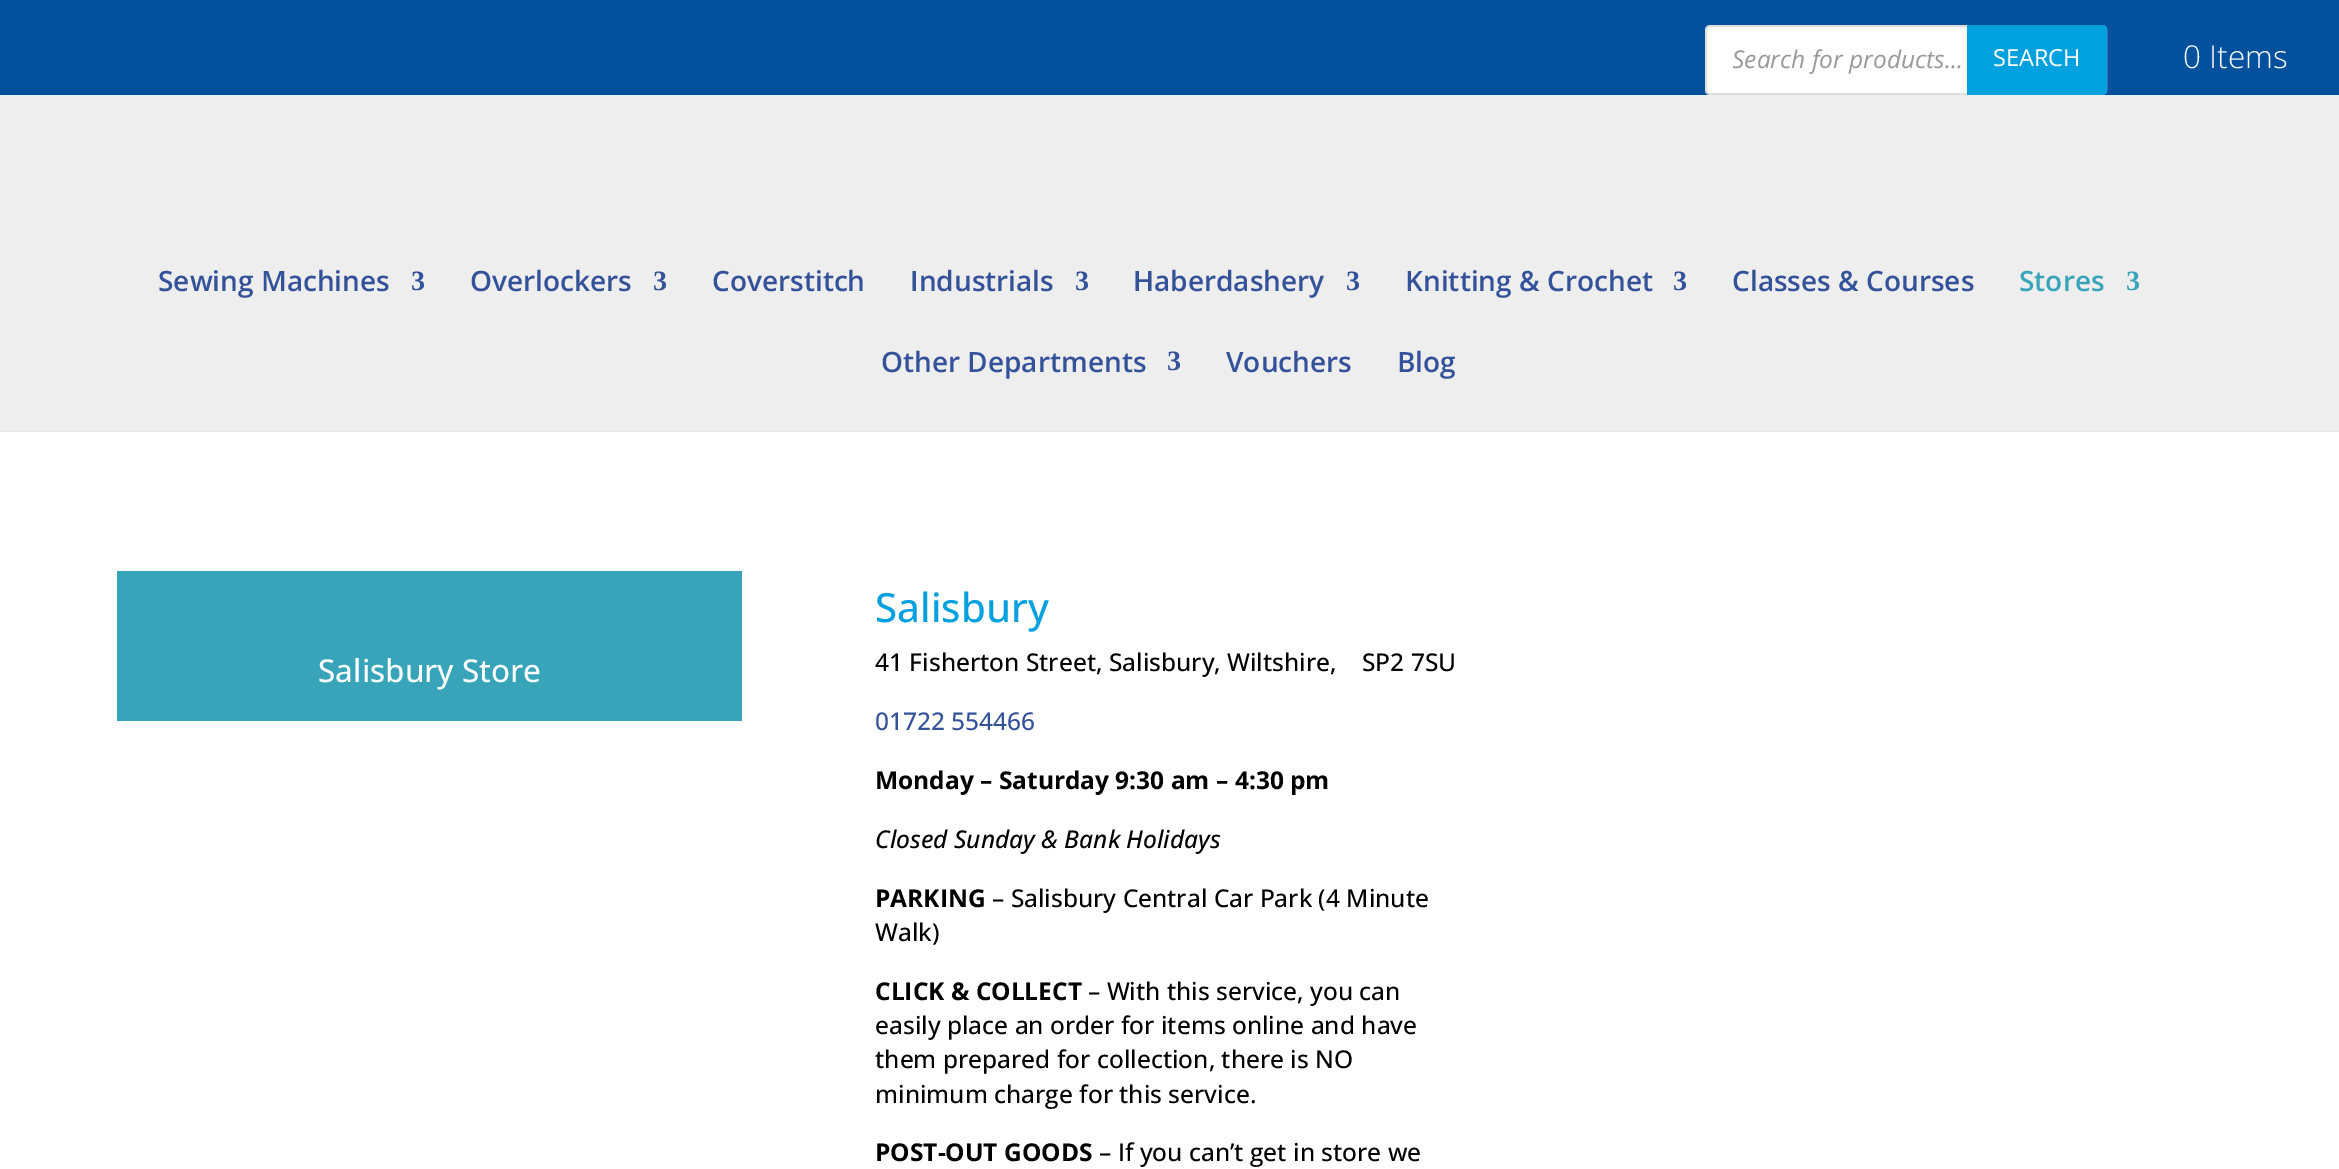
%!PS-Adobe-3.0
%%BoundingBox: 0 0 2339 1169
%%LanguageLevel: 3
%%Pages: 1
%%EndComments
%%BeginProlog
/setink { 3 { 255 div 3 1 roll } repeat setrgbcolor } def
/usefont { [ exch dup neg 0 0 3 -1 roll 0 0 ] selectfont } def
/drawtext { setink usefont moveto show } def
/fillbox { setink rectfill } def
/rrect { 5 dict begin { /r /h /w /y /x } { exch def } forall
  x r add y moveto x w add y 2 copy h add r arct x w add y h add x 1 index r arct
  x y h add x y r arct x y 2 copy exch w add exch r arct closepath end } def
%%EndProlog
%%BeginSetup
<< /PageSize [2339 1169] >> setpagedevice
%%EndSetup
%%Page: 1 1
0 1169 translate 1 -1 scale
4 setmiterlimit
0 0 2339 1169 255 255 255 fillbox
0 0 2339 95 3 81 157 fillbox
255 255 255 setink
1706 26 400 68 4 rrect gsave fill grestore
221 221 221 setink
2 setlinewidth
stroke
gsave
1733 42 346 33 rectclip
(Search for products...) 1732 68 /OpenSans-Italic 24.5 153 153 153 drawtext
grestore
1 160 222 setink
1967 25 moveto 2103 25 lineto 2105 25 2107 27 2107 29 curveto 2107 91 lineto 2107 93 2105 95 2103 95 curveto 1967 95 lineto closepath fill
(SEARCH) 1993 66 /OpenSans-Regular 23.5 255 255 255 drawtext
(0 Items) 2183 68 /OpenSans-Light 31.5 255 255 255 drawtext
230 230 230 setink
0 430 moveto 0 432 lineto 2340 432 lineto 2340 96 lineto 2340 430 lineto closepath fill
0 95 2339 336 238 238 238 fillbox
(Sewing Machines) 158 291 /OpenSans-SemiBold 28 51 82 153 drawtext
(3) 411 290 /LiberationSerif-Bold 28 51 82 153 drawtext
(Overlockers) 470 291 /OpenSans-SemiBold 28 51 82 153 drawtext
(3) 653 290 /LiberationSerif-Bold 28 51 82 153 drawtext
(Coverstitch) 712 291 /OpenSans-SemiBold 28 51 82 153 drawtext
(Industrials) 910 291 /OpenSans-SemiBold 28 51 82 153 drawtext
(3) 1075 290 /LiberationSerif-Bold 28 51 82 153 drawtext
(Haberdashery) 1133 291 /OpenSans-SemiBold 28 51 82 153 drawtext
(3) 1346 290 /LiberationSerif-Bold 28 51 82 153 drawtext
(Knitting & Crochet) 1405 291 /OpenSans-SemiBold 28 51 82 153 drawtext
(3) 1673 290 /LiberationSerif-Bold 28 51 82 153 drawtext
(Classes & Courses) 1732 291 /OpenSans-SemiBold 28 51 82 153 drawtext
(Stores) 2019 291 /OpenSans-SemiBold 28 55 164 186 drawtext
(3) 2126 290 /LiberationSerif-Bold 28 55 164 186 drawtext
(Other Departments) 881 372 /OpenSans-SemiBold 28 51 82 153 drawtext
(3) 1167 370 /LiberationSerif-Bold 28 51 82 153 drawtext
(Vouchers) 1226 372 /OpenSans-SemiBold 28 51 82 153 drawtext
(Blog) 1397 372 /OpenSans-SemiBold 28 51 82 153 drawtext
117 571 625 150 55 164 186 fillbox
(Salisbury Store) 318 682 /OpenSans-Medium 31.5 255 255 255 drawtext
(Salisbury) 875 622 /OpenSans-Medium 40.25 1 160 222 drawtext
(41 Fisherton Street, Salisbury, Wiltshire,    SP2 7SU) 875 671 /OpenSans-Medium 24.5 0 0 0 drawtext
(01722 554466) 875 730 /OpenSans-Medium 24.5 51 82 153 drawtext
(Monday – Saturday 9:30 am – 4:30 pm) 875 789 /OpenSans-Bold 24.5 0 0 0 drawtext
(Closed Sunday & Bank Holidays) 875 848 /OpenSans-MediumItalic 24.5 0 0 0 drawtext
(PARKING) 875 907 /OpenSans-Bold 24.5 0 0 0 drawtext
(– Salisbury Central Car Park \(4 Minute) 992 907 /OpenSans-Medium 24.5 0 0 0 drawtext
(Walk\)) 875 941 /OpenSans-Medium 24.5 0 0 0 drawtext
(CLICK & COLLECT) 875 1000 /OpenSans-Bold 24.5 0 0 0 drawtext
(– With this service, you can) 1088 1000 /OpenSans-Medium 24.5 0 0 0 drawtext
(easily place an order for items online and have) 875 1034 /OpenSans-Medium 24.5 0 0 0 drawtext
(them prepared for collection, there is NO) 875 1068 /OpenSans-Medium 24.5 0 0 0 drawtext
(minimum charge for this service.) 875 1103 /OpenSans-Medium 24.5 0 0 0 drawtext
(POST-OUT GOODS) 875 1161 /OpenSans-Bold 24.5 0 0 0 drawtext
(– If you can’t get in store we) 1099 1161 /OpenSans-Medium 24.5 0 0 0 drawtext
showpage
%%EOF
